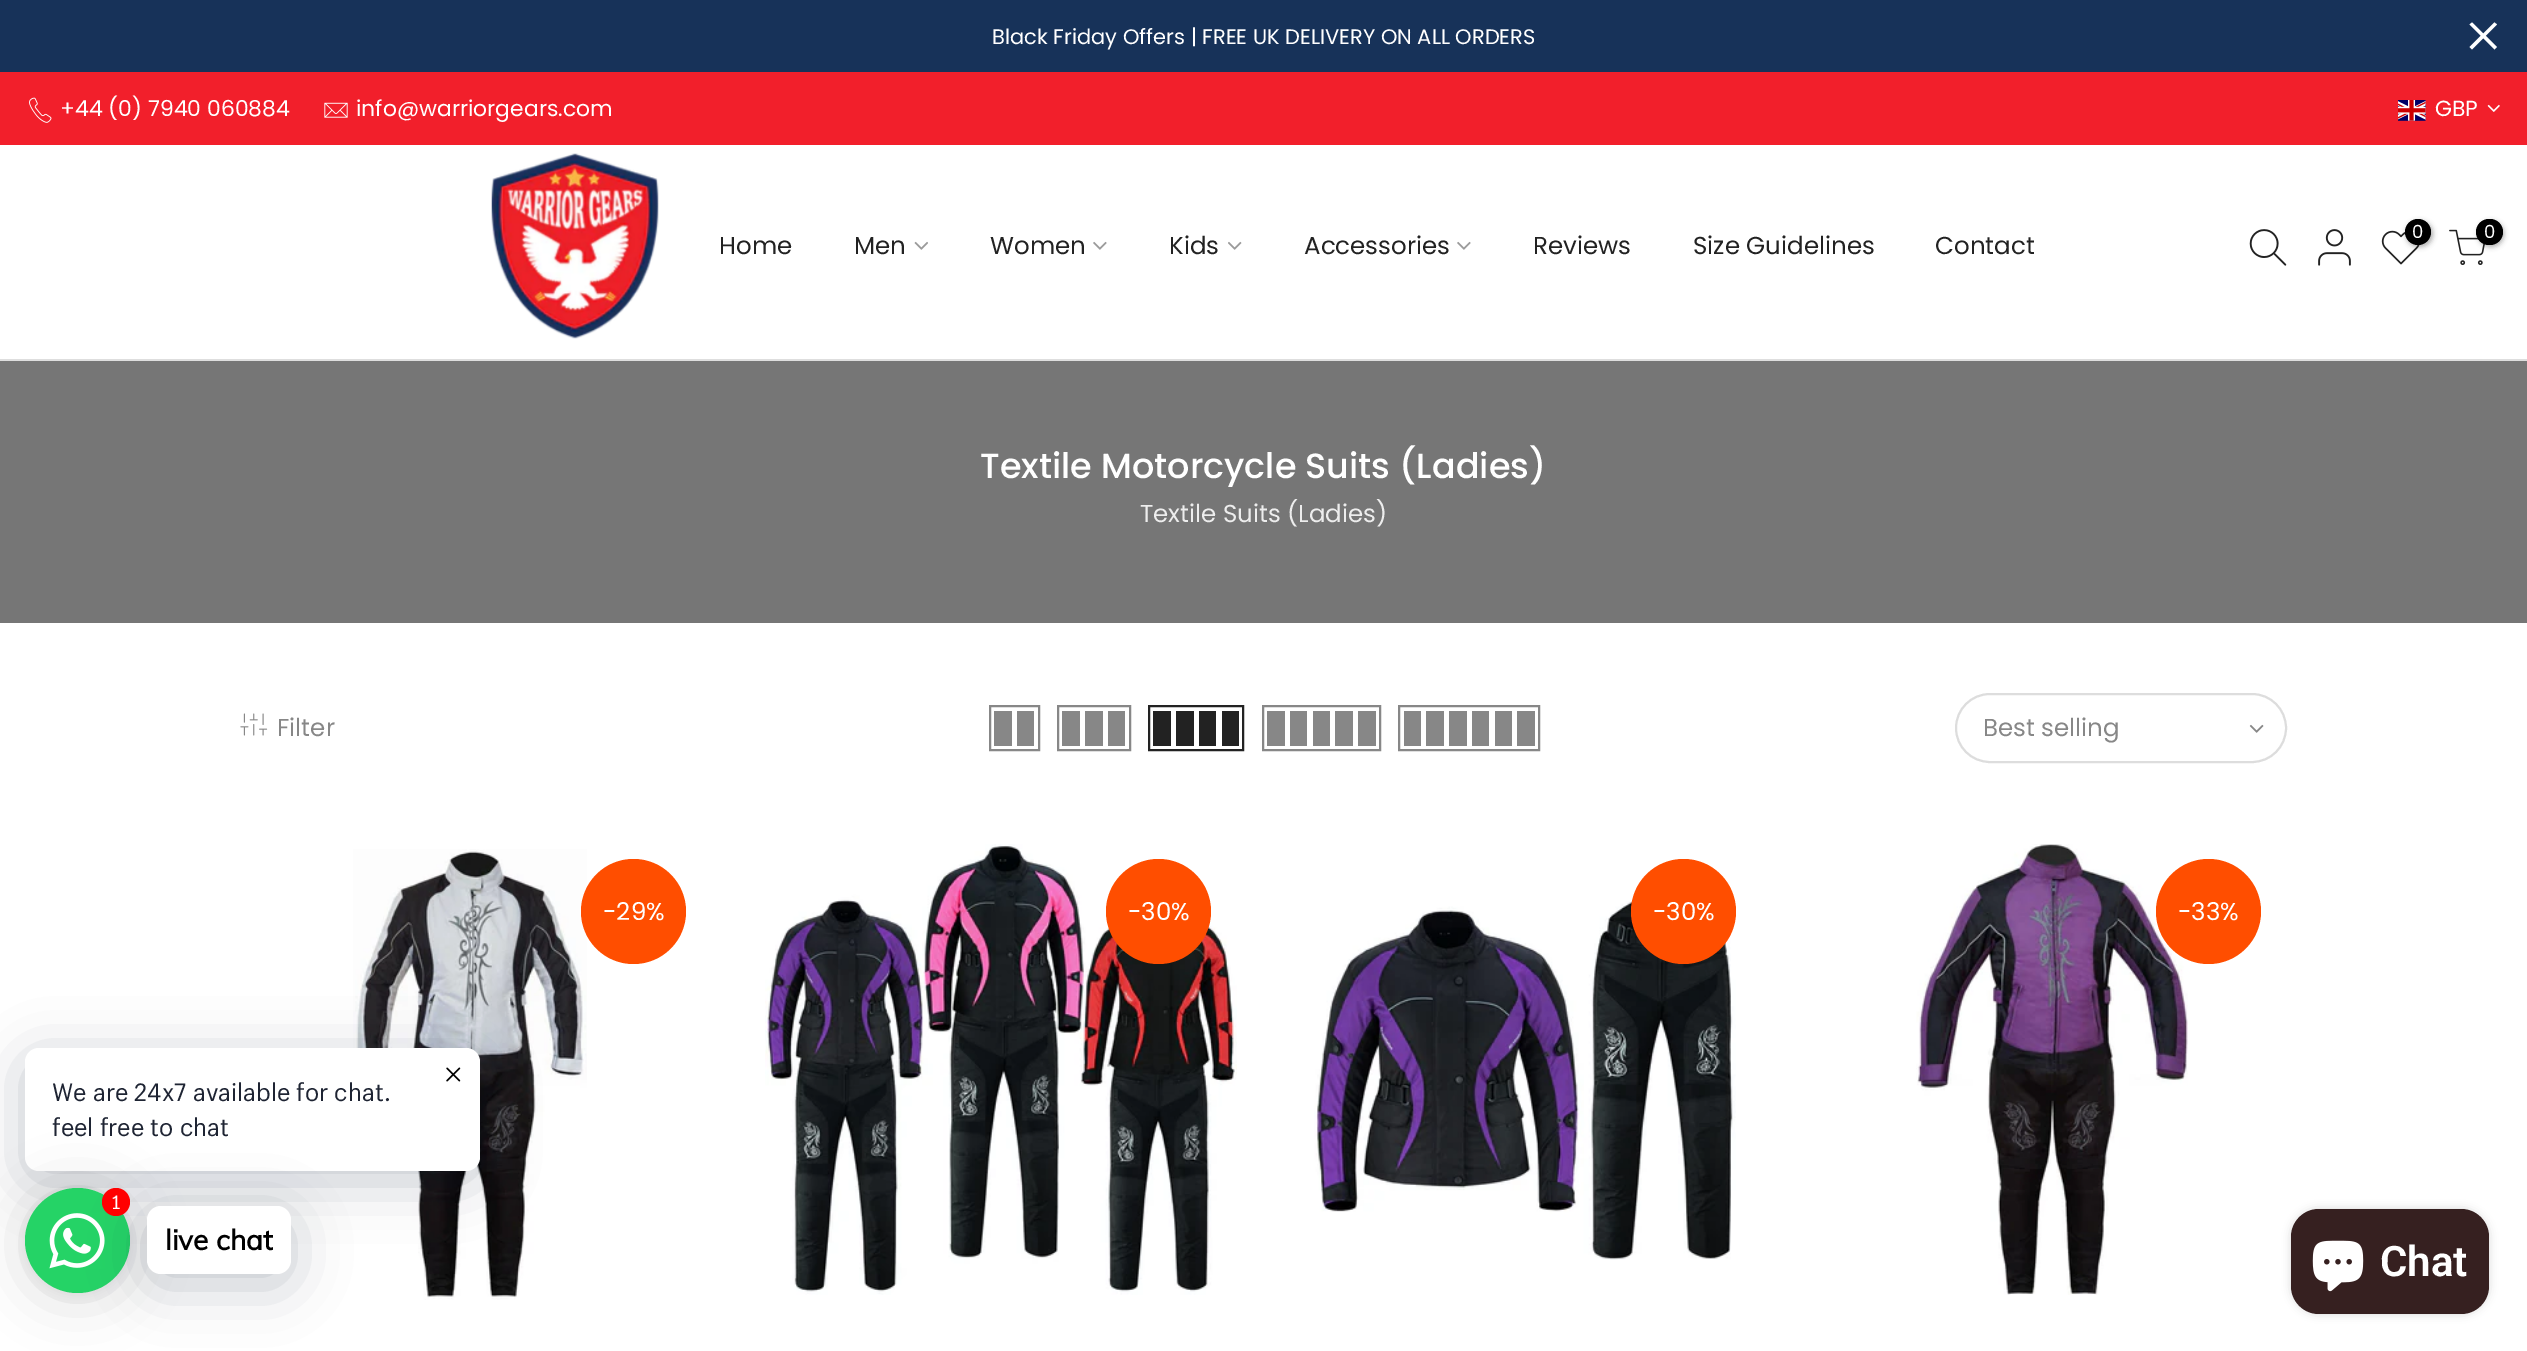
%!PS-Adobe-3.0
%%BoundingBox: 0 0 2527 1351
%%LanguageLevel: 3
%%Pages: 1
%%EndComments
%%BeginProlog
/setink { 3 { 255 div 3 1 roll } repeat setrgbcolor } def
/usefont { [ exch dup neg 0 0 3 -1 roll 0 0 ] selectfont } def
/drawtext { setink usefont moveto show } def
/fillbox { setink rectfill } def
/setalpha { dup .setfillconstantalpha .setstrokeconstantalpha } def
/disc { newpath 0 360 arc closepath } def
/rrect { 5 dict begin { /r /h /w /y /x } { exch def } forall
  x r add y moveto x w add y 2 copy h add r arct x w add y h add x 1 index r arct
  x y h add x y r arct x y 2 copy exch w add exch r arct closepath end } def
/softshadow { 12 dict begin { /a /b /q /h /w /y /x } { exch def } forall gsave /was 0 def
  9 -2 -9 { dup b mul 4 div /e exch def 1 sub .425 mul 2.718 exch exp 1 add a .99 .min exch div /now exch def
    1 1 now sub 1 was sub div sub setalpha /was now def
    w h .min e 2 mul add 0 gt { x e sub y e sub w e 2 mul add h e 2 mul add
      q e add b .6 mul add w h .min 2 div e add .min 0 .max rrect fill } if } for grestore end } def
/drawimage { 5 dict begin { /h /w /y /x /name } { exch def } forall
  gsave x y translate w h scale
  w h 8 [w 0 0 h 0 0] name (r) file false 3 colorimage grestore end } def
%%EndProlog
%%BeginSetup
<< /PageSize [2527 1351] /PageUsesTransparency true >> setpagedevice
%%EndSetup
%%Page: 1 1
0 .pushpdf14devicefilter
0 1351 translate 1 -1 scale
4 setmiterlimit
0 0 2527 1351 255 255 255 fillbox
0 0 2527 72 23 50 89 fillbox
(Black Friday Offers | FREE UK DELIVERY ON ALL ORDERS) 992 44 /Poppins-Regular 21 255 255 255 drawtext
2472 22.5 moveto 2497 47 lineto 2494.5 49.5 lineto 2469.5 24.5 lineto closepath fill
2469.5 47 moveto 2494.5 22.5 lineto 2497 24.5 lineto 2472 49.5 lineto closepath fill
0 72 2527 73 242 31 43 fillbox
(assets/img1.rgb) 29 97 23 26 drawimage
(+44 \(0\) 7940 060884) 60 116 /Poppins-Regular 21.9 255 255 255 drawtext
(assets/img2.rgb) 324 102 24 16 drawimage
(info@warriorgears.com) 356 116 /Poppins-Regular 21.9 255 255 255 drawtext
(assets/img3.rgb) 2398 100 28 21 drawimage
(GBP) 2435 116 /Poppins-Regular 21.9 255 255 255 drawtext
(assets/img4.rgb) 2487 104 13 8 drawimage
(assets/img5.rgb) 2249 229 38 37 drawimage
(assets/img6.rgb) 2318 229 33 37 drawimage
(assets/img7.rgb) 2381 230 39 35 drawimage
0 0 0 setink
2406 221 27 26 13 2.5 0.3 softshadow
2418 232 13 disc fill
(0) 2412 238 /Poppins-Regular 18 255 255 255 drawtext
(assets/img8.rgb) 2449 229 36 36 drawimage
0 0 0 setink
2478 221 26 26 13 2.5 0.3 softshadow
2476 219 27 26 13 rrect fill
(0) 2484 238 /Poppins-Regular 18 255 255 255 drawtext
(assets/img9.rgb) 491 153 168 186 drawimage
(Home) 719 254 /Poppins-Regular 24.5 34 34 34 drawtext
(Men) 854 254 /Poppins-Regular 24.5 34 34 34 drawtext
(assets/img10.rgb) 914 241 14 9 drawimage
(Women) 990 254 /Poppins-Regular 24.5 34 34 34 drawtext
(assets/img11.rgb) 1093 241 14 9 drawimage
(Kids) 1169 254 /Poppins-Regular 24.5 34 34 34 drawtext
(assets/img12.rgb) 1228 241 14 9 drawimage
(Accessories) 1304 254 /Poppins-Regular 24.5 34 34 34 drawtext
(assets/img11.rgb) 1457 241 14 9 drawimage
(Reviews) 1533 254 /Poppins-Regular 24.5 34 34 34 drawtext
(Size Guidelines) 1693 254 /Poppins-Regular 24.5 34 34 34 drawtext
(Contact) 1935 254 /Poppins-Regular 24.5 34 34 34 drawtext
0 359 2527 2 222 222 222 fillbox
0 361 2527 262 118 118 118 fillbox
(Textile Motorcycle Suits \(Ladies\)) 980 478 /Poppins-Medium 35 255 255 255 drawtext
(Textile Suits \(Ladies\)) 1140 522 /Poppins-Regular 24.5 237 237 237 drawtext
(assets/img13.rgb) 240 713 28 23 drawimage
(Filter) 277 736 /Poppins-Regular 24.5 135 135 135 drawtext
2 setlinewidth
990 706 49 44 rectstroke
1017 711 17 35 135 135 135 fillbox
994 711 18 35 135 135 135 fillbox
1058 706 72 44 rectstroke
1108 711 17 35 135 135 135 fillbox
1085 711 18 35 135 135 135 fillbox
1062 711 18 35 135 135 135 fillbox
34 34 34 setink
1149 706 94 44 rectstroke
1222 711 17 35 34 34 34 fillbox
1199 711 17 35 34 34 34 fillbox
1176 711 18 35 34 34 34 fillbox
1153 711 18 35 34 34 34 fillbox
135 135 135 setink
1263 706 117 44 rectstroke
1358 711 18 35 135 135 135 fillbox
1335 711 18 35 135 135 135 fillbox
1313 711 17 35 135 135 135 fillbox
1290 711 17 35 135 135 135 fillbox
1267 711 18 35 135 135 135 fillbox
1399 706 140 44 rectstroke
1517 711 18 35 135 135 135 fillbox
1495 711 17 35 135 135 135 fillbox
1472 711 17 35 135 135 135 fillbox
1449 711 18 35 135 135 135 fillbox
1426 711 18 35 135 135 135 fillbox
1404 711 17 35 135 135 135 fillbox
221 221 221 setink
1956 694 330 68 34 rrect stroke
(Best selling) 1983 736 /Poppins-Regular 24.5 135 135 135 drawtext
(assets/img14.rgb) 2249 724 15 9 drawimage
(assets/img15.rgb) 353 849 234 451 drawimage
255 78 0 setink
633.5 911.5 52.5 disc fill
(-29%) 603 920 /Poppins-Regular 24.5 255 255 255 drawtext
(assets/img16.rgb) 765 844 472 451 drawimage
255 78 0 setink
1158.5 911.5 52.5 disc fill
(-30%) 1128 920 /Poppins-Regular 24.5 255 255 255 drawtext
(assets/img17.rgb) 1314 895 422 365 drawimage
255 78 0 setink
1683.5 911.5 52.5 disc fill
(-30%) 1653 920 /Poppins-Regular 24.5 255 255 255 drawtext
(assets/img18.rgb) 1916 844 272 451 drawimage
255 78 0 setink
2208.5 911.5 52.5 disc fill
(-33%) 2178 920 /Poppins-Regular 24.5 255 255 255 drawtext
0 18 46 setink
25 1059 455 122 14 28 0.24 softshadow
255 255 255 setink
25 1048 455 123 14 rrect fill
(assets/img19.rgb) 446 1067 15 15 drawimage
(We are 24x7 available for chat.) 52 1101 /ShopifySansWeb-Regular 24.5 30 36 51 drawtext
(feel free to chat) 52 1136 /ShopifySansWeb-Regular 24.5 30 36 51 drawtext
0 0 0 setink
25 1192 105 105 52.5 28 0.16 softshadow
25 1190 105 105 52.5 5 0.06 softshadow
37 211 102 setink
77.5 1240.5 52.5 disc fill
0 18 46 setink
147 1216 144 69 14 28 0.24 softshadow
(assets/img20.rgb) 49 1213 56 56 drawimage
255 0 0 setink
116 1202 14 disc fill
(1) 112 1209 /ShopifySansWeb-Regular 19 255 255 255 drawtext
147 1206 144 68 14 rrect fill
(live chat) 165 1250 /Muli-Bold 28 0 0 0 drawtext
2291 1209 198 105 28 4.5 0.15 softshadow
54 32 32 setink
2291 1209 198 105 28 rrect fill
(assets/img21.rgb) 2312 1240 52 52 drawimage
(Chat) 2380 1276 /Roboto-SemiBold 42 255 255 255 drawtext
.poppdf14devicefilter showpage
%%EOF
